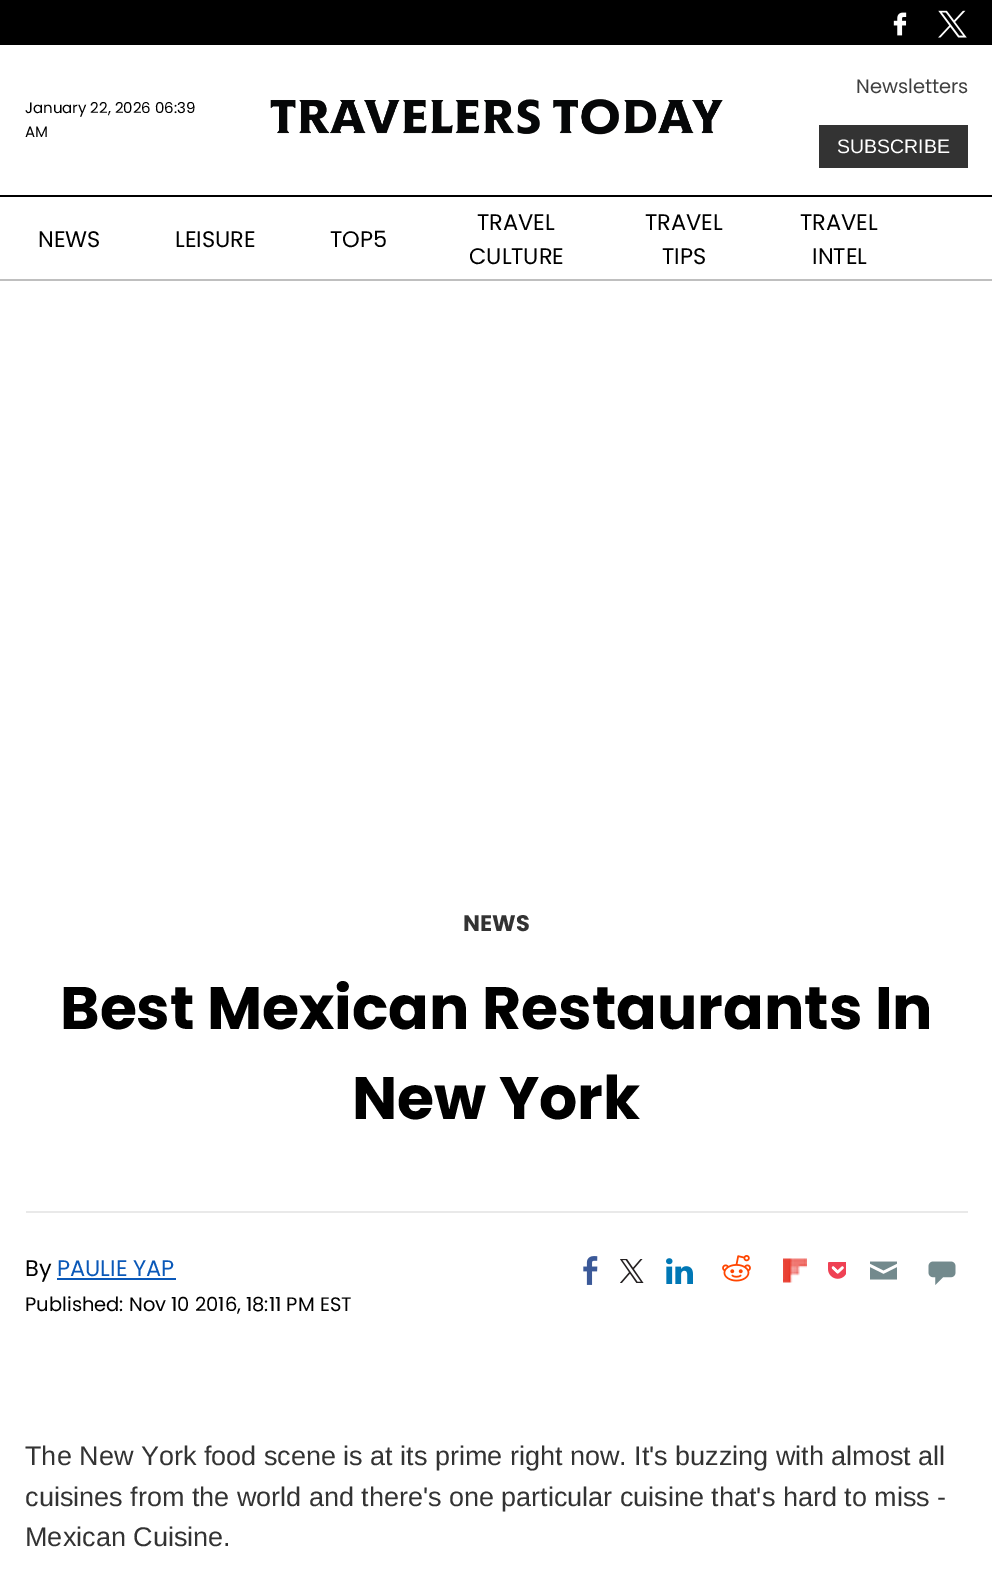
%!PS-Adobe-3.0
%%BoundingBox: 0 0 992 1595
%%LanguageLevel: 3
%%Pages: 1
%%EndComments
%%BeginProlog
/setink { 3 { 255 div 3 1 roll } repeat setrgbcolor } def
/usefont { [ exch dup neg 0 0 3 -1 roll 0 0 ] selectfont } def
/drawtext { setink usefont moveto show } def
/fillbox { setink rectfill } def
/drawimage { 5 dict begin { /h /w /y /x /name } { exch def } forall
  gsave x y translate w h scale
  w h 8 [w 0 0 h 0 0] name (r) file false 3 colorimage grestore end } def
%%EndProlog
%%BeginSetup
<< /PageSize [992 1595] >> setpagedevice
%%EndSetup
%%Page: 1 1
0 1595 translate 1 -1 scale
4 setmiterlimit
0 0 992 1595 255 255 255 fillbox
0 0 992 45 0 0 0 fillbox
(assets/img1.rgb) 893 12 14 24 drawimage
(assets/img2.rgb) 938 10 29 28 drawimage
0 195 992 2 0 0 0 fillbox
(January 22, 2026 06:39) 25 113 /Poppins-Regular 15 0 0 0 drawtext
(AM) 25 137 /Poppins-Regular 15 0 0 0 drawtext
(assets/img3.rgb) 270 99 453 36 drawimage
(Newsletters) 856 93 /Poppins-Regular 19.5 64 64 64 drawtext
819 125 149 43 51 51 51 fillbox
(SUBSCRIBE) 837 153 /LiberationSans-Regular 19.5 255 255 255 drawtext
0 279 992 2 191 191 191 fillbox
(NEWS) 38 247 /Poppins-Regular 22.5 0 0 0 drawtext
(LEISURE) 175 247 /Poppins-Regular 22.5 0 0 0 drawtext
(TOP5) 330 247 /Poppins-Regular 22.5 0 0 0 drawtext
(TRAVEL) 477 230 /Poppins-Regular 22.5 0 0 0 drawtext
(CULTURE) 469 264 /Poppins-Regular 22.5 0 0 0 drawtext
(TRAVEL) 645 230 /Poppins-Regular 22.5 0 0 0 drawtext
(TIPS) 662 264 /Poppins-Regular 22.5 0 0 0 drawtext
(TRAVEL) 800 230 /Poppins-Regular 22.5 0 0 0 drawtext
(INTEL) 812 264 /Poppins-Regular 22.5 0 0 0 drawtext
(NEWS) 463 931 /Poppins-Bold 22.5 51 51 51 drawtext
(Best Mexican Restaurants In) 60 1029 /Poppins-Bold 60 0 0 0 drawtext
(New York) 352 1119 /Poppins-Bold 60 0 0 0 drawtext
26 1211 942 2 233 233 233 fillbox
(By) 25 1276 /Poppins-Regular 22.5 0 0 0 drawtext
(PAULIE YAP) 57 1276 /Poppins-Regular 22.5 10 88 184 drawtext
57 1278 119 2 10 88 184 fillbox
(Published: Nov 10 2016, 18:11 PM EST) 25 1311 /Poppins-Regular 19.5 0 0 0 drawtext
(assets/img4.rgb) 583 1256 15 29 drawimage
(assets/img5.rgb) 620 1259 24 24 drawimage
(assets/img6.rgb) 666 1258 27 26 drawimage
(assets/img7.rgb) 722 1255 29 27 drawimage
(assets/img8.rgb) 783 1258 24 25 drawimage
(assets/img9.rgb) 828 1262 18 17 drawimage
(assets/img10.rgb) 870 1261 27 19 drawimage
(assets/img11.rgb) 928 1261 28 24 drawimage
(The New York food scene is at its prime right now. It's buzzing with almost all) 25 1465 /LiberationSans-Regular 27 51 51 51 drawtext
(cuisines from the world and there's one particular cuisine that's hard to miss -) 25 1506 /LiberationSans-Regular 27 51 51 51 drawtext
(Mexican Cuisine.) 25 1546 /LiberationSans-Regular 27 51 51 51 drawtext
showpage
%%EOF
